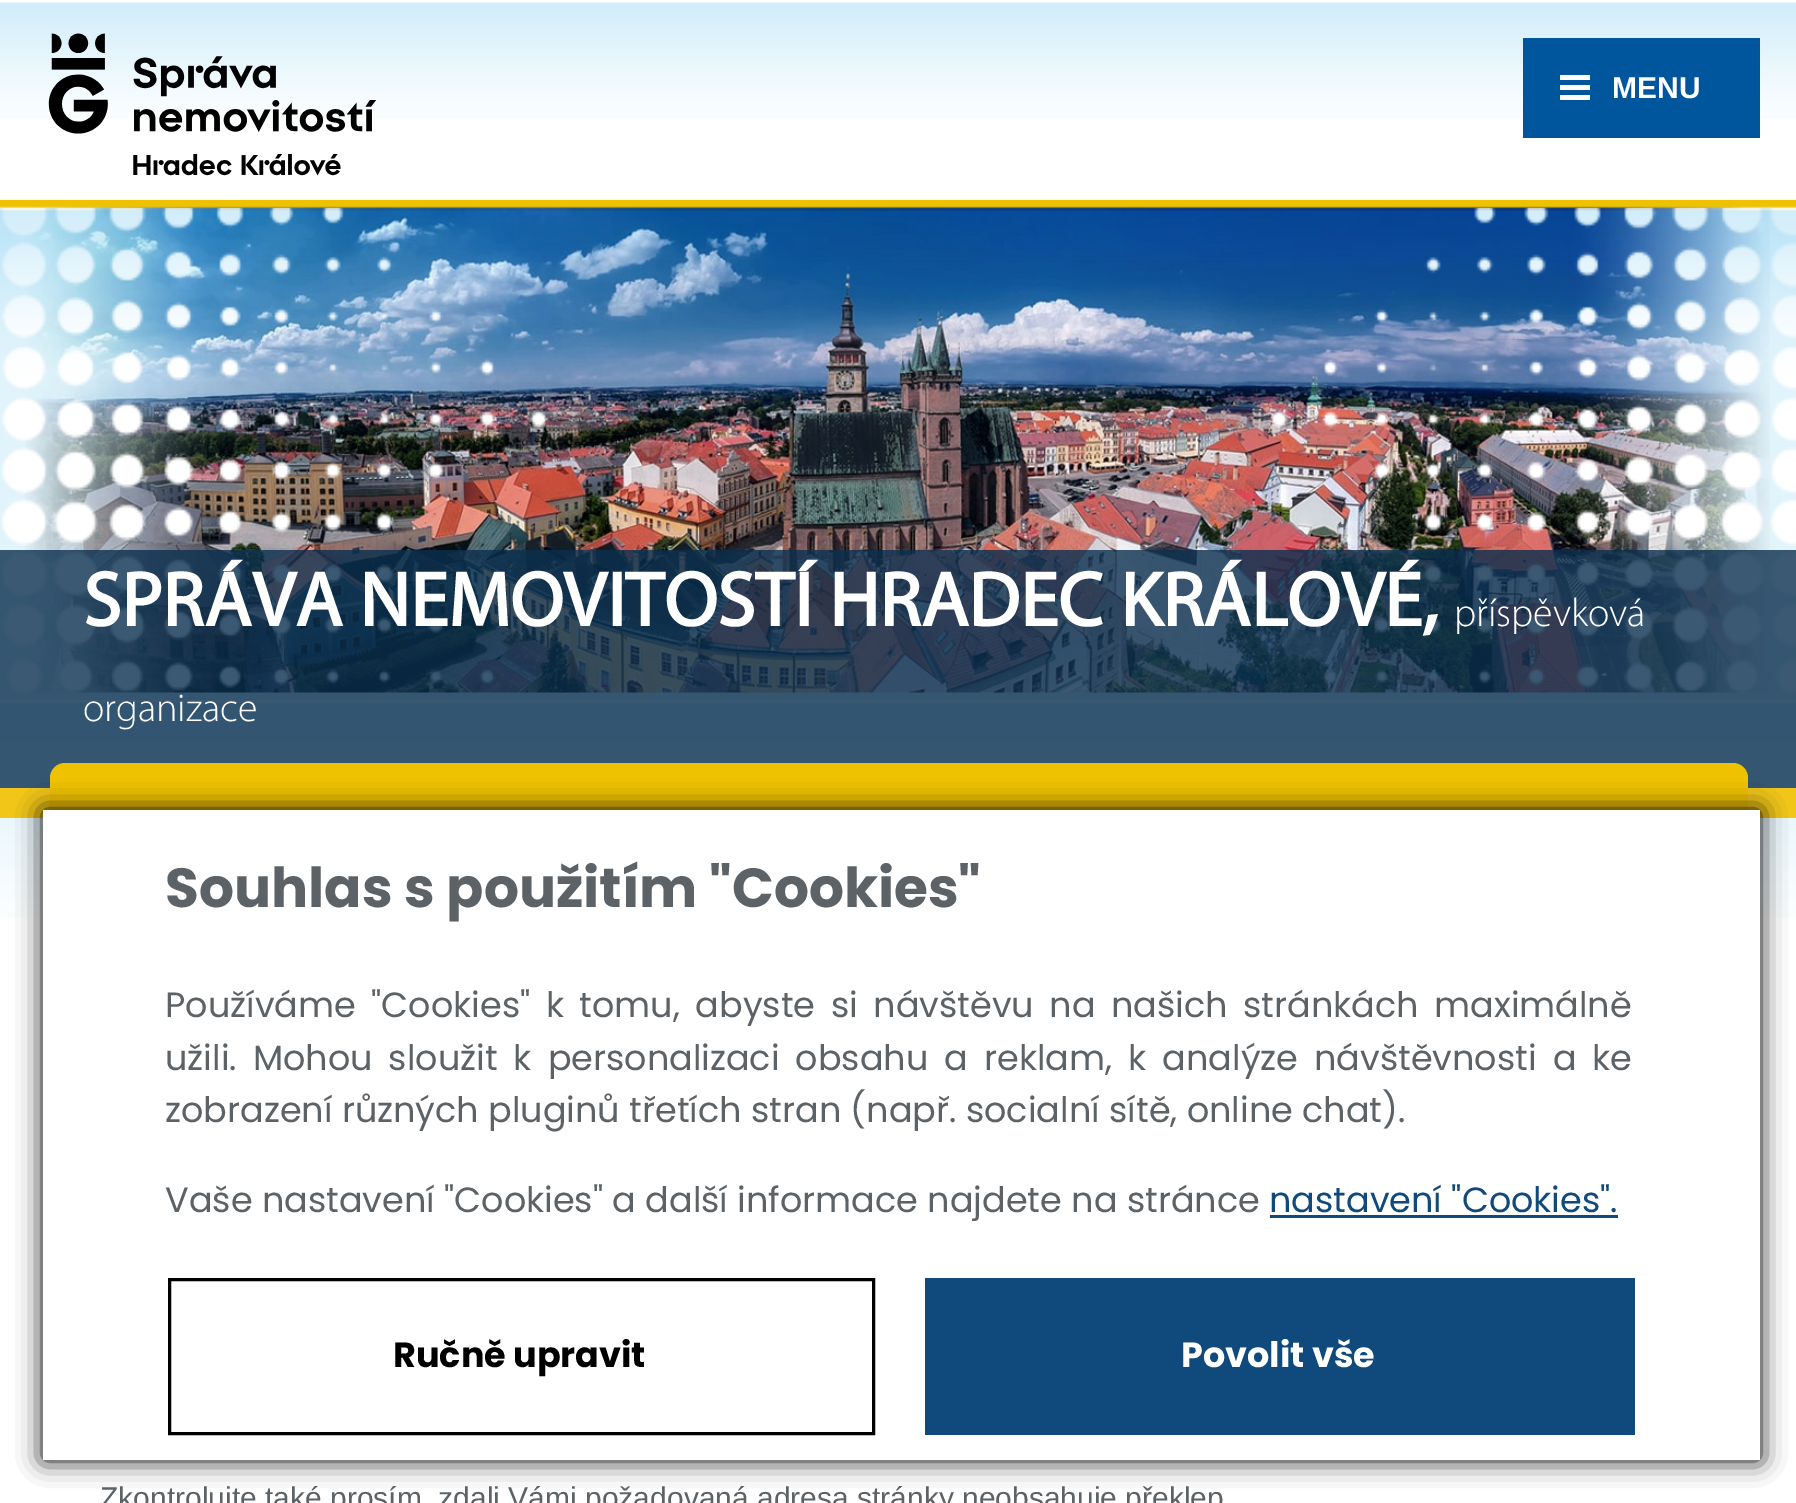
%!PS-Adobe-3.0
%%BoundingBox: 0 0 1796 1503
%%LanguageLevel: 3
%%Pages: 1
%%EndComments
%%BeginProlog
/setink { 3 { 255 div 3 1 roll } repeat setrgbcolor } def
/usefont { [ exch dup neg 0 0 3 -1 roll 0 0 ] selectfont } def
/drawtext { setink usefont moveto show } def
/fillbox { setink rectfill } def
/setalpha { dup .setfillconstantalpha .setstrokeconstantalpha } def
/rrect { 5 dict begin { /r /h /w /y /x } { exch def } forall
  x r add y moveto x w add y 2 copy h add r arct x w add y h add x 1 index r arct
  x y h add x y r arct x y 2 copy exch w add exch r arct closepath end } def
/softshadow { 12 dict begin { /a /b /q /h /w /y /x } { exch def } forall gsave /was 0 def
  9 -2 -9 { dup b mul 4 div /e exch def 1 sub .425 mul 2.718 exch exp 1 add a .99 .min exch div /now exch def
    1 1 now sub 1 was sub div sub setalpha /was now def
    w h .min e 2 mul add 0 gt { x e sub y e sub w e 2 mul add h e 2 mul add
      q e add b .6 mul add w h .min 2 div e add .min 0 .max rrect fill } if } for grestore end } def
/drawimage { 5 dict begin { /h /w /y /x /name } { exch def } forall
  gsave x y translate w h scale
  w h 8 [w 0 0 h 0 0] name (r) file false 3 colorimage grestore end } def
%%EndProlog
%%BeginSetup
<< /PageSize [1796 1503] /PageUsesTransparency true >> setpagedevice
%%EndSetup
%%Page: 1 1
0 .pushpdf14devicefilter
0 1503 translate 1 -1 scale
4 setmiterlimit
0 0 1796 1503 255 255 255 fillbox
(assets/img1.rgb) 0 2 1796 117 drawimage
(assets/img2.rgb) 48 33 328 143 drawimage
1523 38 237 100 0 86 156 fillbox
1560 75 30 5 255 255 255 fillbox
1560 85 30 5 255 255 255 fillbox
1560 95 30 5 255 255 255 fillbox
(MENU) 1612 98 /LiberationSans-Bold 30 255 255 255 drawtext
0 206 1796 494 225 243 251 fillbox
(assets/img4.rgb) 25 206 1745 487 drawimage
(assets/img5.rgb) 0 207 546 487 drawimage
(assets/img6.rgb) 1271 207 525 487 drawimage
(assets/img3.rgb) 0 200 1796 182 drawimage
(assets/img7.rgb) 0 701 1796 216 drawimage
0.8 setalpha
0 550 1796 238 10 47 79 fillbox
0.9 setalpha
0 788 1796 30 242 193 0 fillbox
1 setalpha
(SPRÁVA NEMOVITOSTÍ HRADEC KRÁLOVÉ,) 83 626 /Myriad-Bold 77.5 255 255 255 drawtext
(příspěvková) 1454 626 /Myriad-Light 40 255 255 255 drawtext
(organizace) 83 721 /Myriad-Light 40 255 255 255 drawtext
239 194 0 setink
50 763 1698 95 15 rrect fill
(Zkontrolujte také prosím, zdali Vámi požadovaná adresa stránky neobsahuje překlep) 100 1508 /LiberationSans-Regular 30 92 98 102 drawtext
0 0 0 setink
43 810 1717 650 0 12.5 1 softshadow
43 810 1717 650 255 255 255 fillbox
(Souhlas s použitím "Cookies") 165 907 /Poppins-Bold 55 92 98 102 drawtext
/Poppins-Regular 35 usefont
165 1017 moveto 6.25 0 32 (Používáme "Cookies" k tomu, abyste si návštěvu na našich stránkách maximálně) widthshow
165 1070 moveto 6.75 0 32 (užili. Mohou sloužit k personalizaci obsahu a reklam, k analýze návštěvnosti a ke) widthshow
(zobrazení různých pluginů třetích stran \(např. socialní sítě, online chat\).) 165 1122 /Poppins-Regular 35 92 98 102 drawtext
(Vaše nastavení "Cookies" a další informace najdete na stránce) 165 1212 /Poppins-Regular 35 92 98 102 drawtext
(nastavení "Cookies".) 1269 1212 /Poppins-Regular 35 16 73 123 drawtext
1270 1215 348 3 16 73 123 fillbox
0 0 0 setink
3 setlinewidth
169.5 1279.5 704 154 rectstroke
(Ručně upravit) 393 1367 /Poppins-Bold 35 0 0 0 drawtext
925 1278 710 157 16 73 123 fillbox
(Povolit vše) 1181 1367 /Poppins-Bold 35 255 255 255 drawtext
.poppdf14devicefilter showpage
%%EOF
